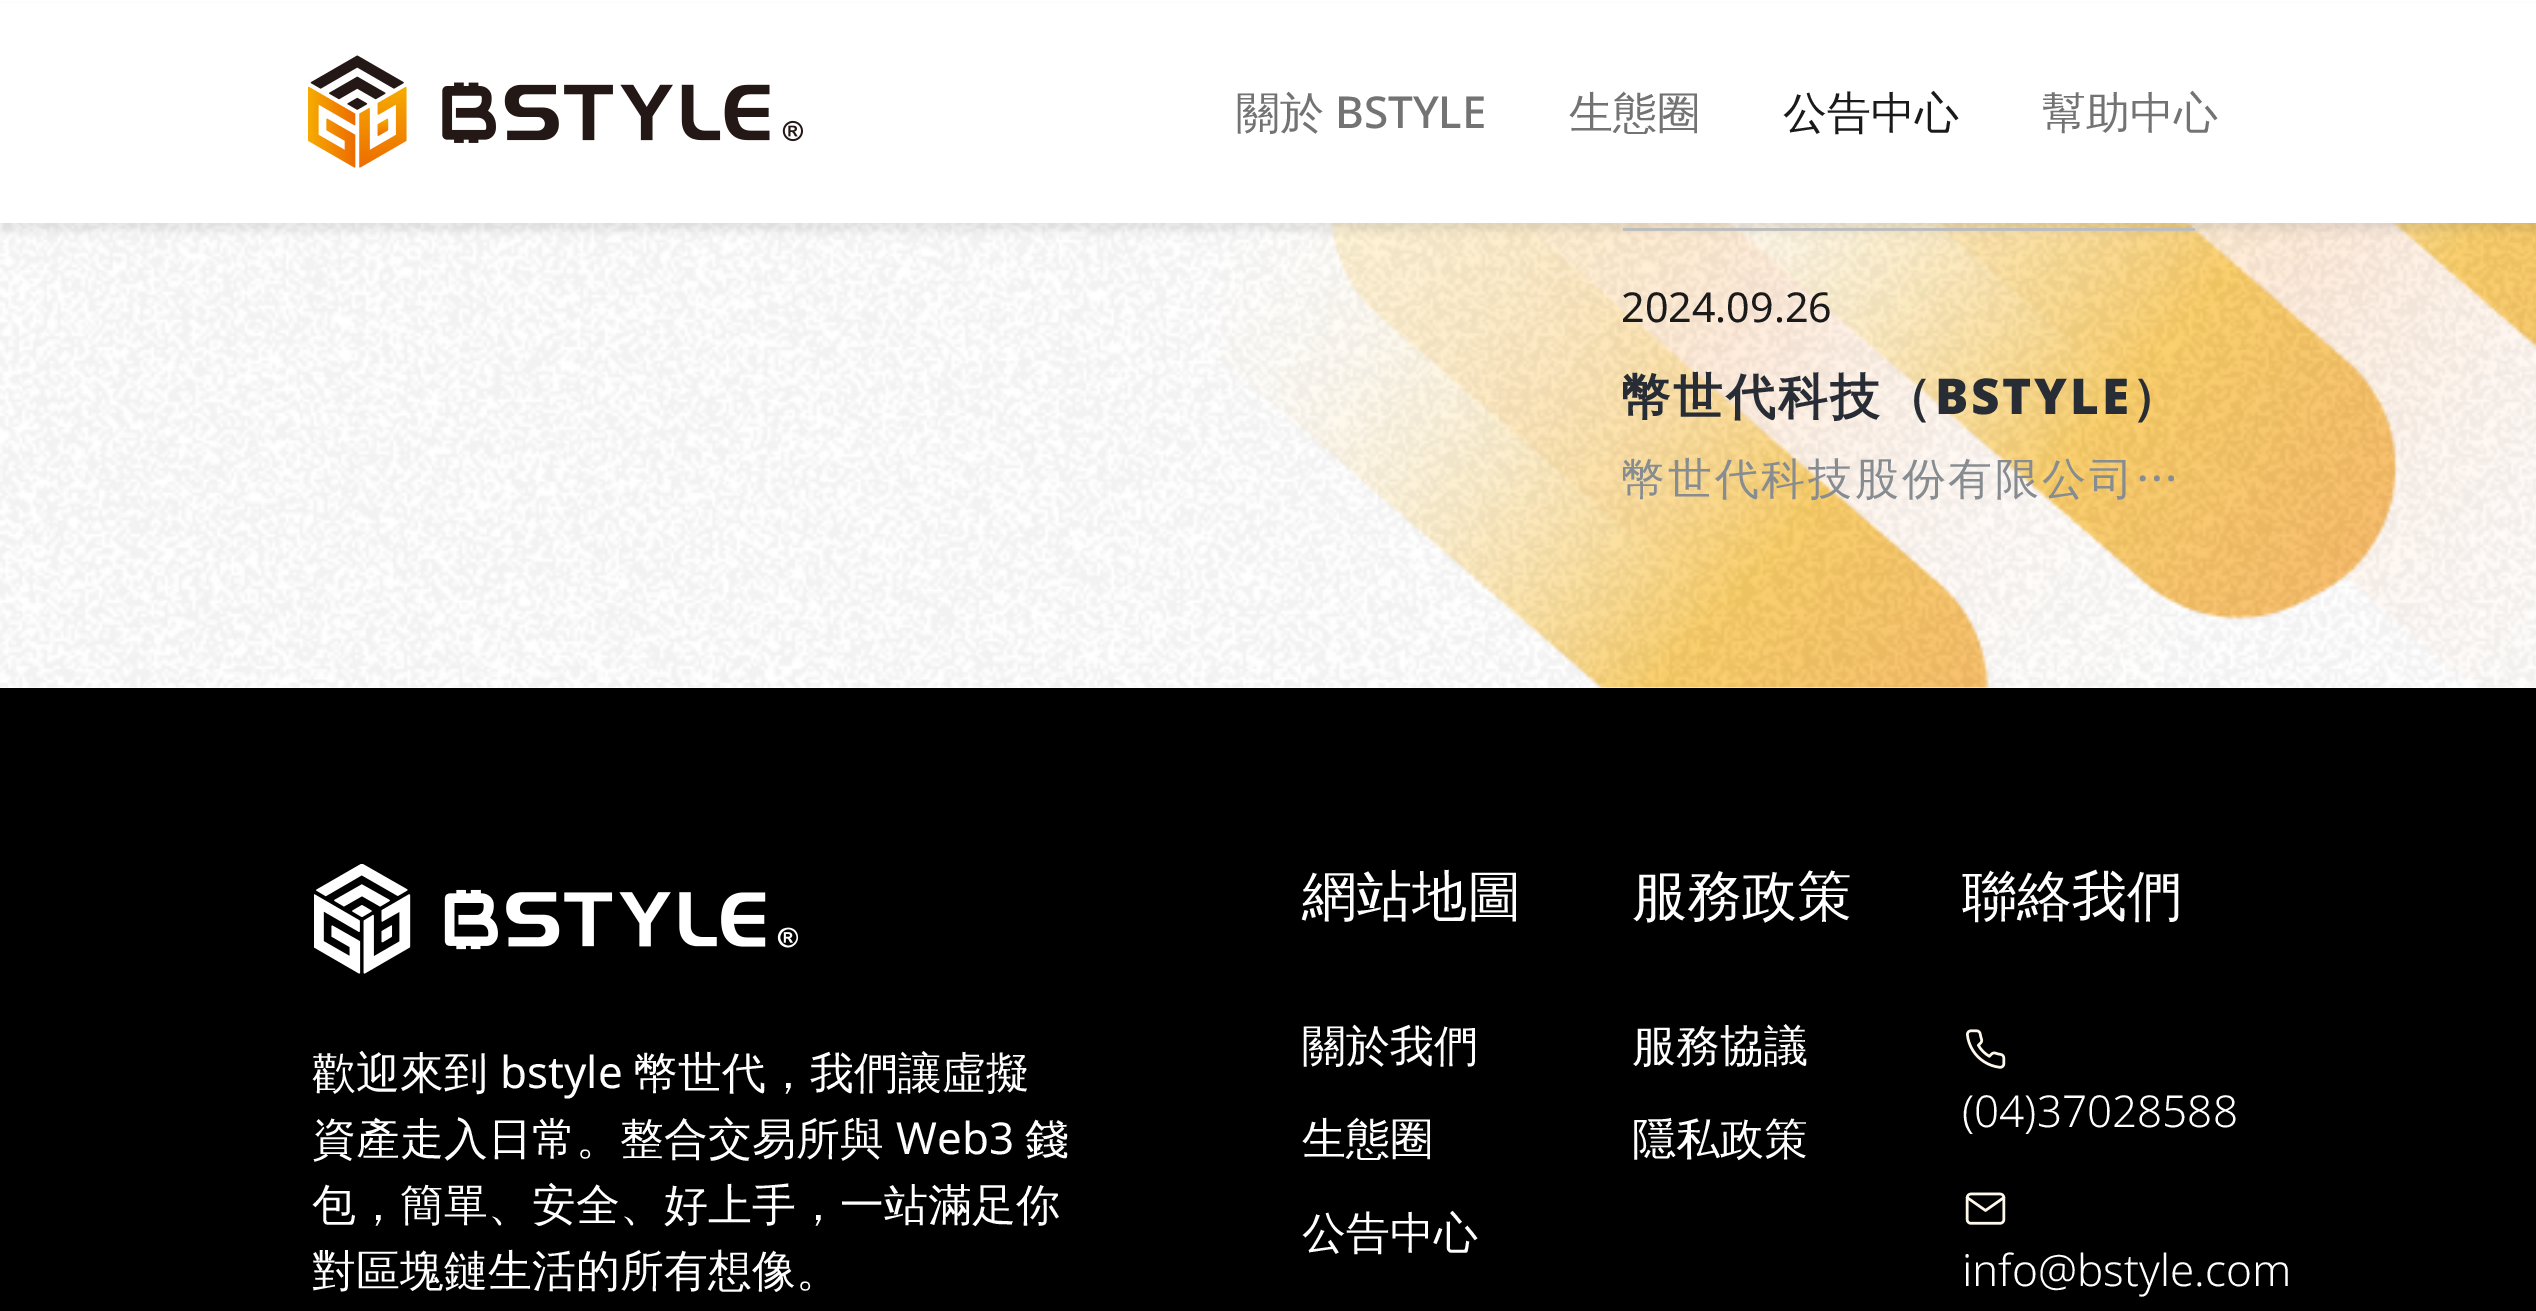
%!PS-Adobe-3.0
%%BoundingBox: 0 0 2536 1311
%%LanguageLevel: 3
%%Pages: 1
%%EndComments
%%BeginProlog
/setink { 3 { 255 div 3 1 roll } repeat setrgbcolor } def
/usefont { [ exch dup neg 0 0 3 -1 roll 0 0 ] selectfont } def
/drawtext { setink usefont moveto show } def
/fillbox { setink rectfill } def
/setalpha { dup .setfillconstantalpha .setstrokeconstantalpha } def
/rrect { 5 dict begin { /r /h /w /y /x } { exch def } forall
  x r add y moveto x w add y 2 copy h add r arct x w add y h add x 1 index r arct
  x y h add x y r arct x y 2 copy exch w add exch r arct closepath end } def
/softshadow { 12 dict begin { /a /b /q /h /w /y /x } { exch def } forall gsave /was 0 def
  9 -2 -9 { dup b mul 4 div /e exch def 1 sub .425 mul 2.718 exch exp 1 add a .99 .min exch div /now exch def
    1 1 now sub 1 was sub div sub setalpha /was now def
    w h .min e 2 mul add 0 gt { x e sub y e sub w e 2 mul add h e 2 mul add
      q e add b .6 mul add w h .min 2 div e add .min 0 .max rrect fill } if } for grestore end } def
/drawimage { 5 dict begin { /h /w /y /x /name } { exch def } forall
  gsave x y translate w h scale
  w h 8 [w 0 0 h 0 0] name (r) file false 3 colorimage grestore end } def
%%EndProlog
%%BeginSetup
<< /PageSize [2536 1311] /PageUsesTransparency true >> setpagedevice
%%EndSetup
%%Page: 1 1
0 .pushpdf14devicefilter
0 1311 translate 1 -1 scale
4 setmiterlimit
0 0 2536 1311 255 255 255 fillbox
(assets/img3.rgb) 1220 223 1316 465 drawimage
(assets/img2.rgb) 0 223 2536 465 drawimage
1623 228 572 3 199 199 199 fillbox
40 45 53 setink
0 8 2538 223 0 4 0.1 softshadow
0 3 2536 220 255 255 255 fillbox
(assets/img1.rgb) 308 55 495 113 drawimage
(關於) 1236 128 /WenQuanYiZenHei-Medium 44 115 115 115 drawtext
(BSTYLE) 1335 128 /NotoSans-Medium 44 115 115 115 drawtext
(生態圈) 1569 128 /WenQuanYiZenHei-Medium 44 115 115 115 drawtext
(公告中心) 1783 128 /WenQuanYiZenHei-Medium 44 26 26 26 drawtext
(幫助中心) 2042 128 /WenQuanYiZenHei-Medium 44 115 115 115 drawtext
(2024.09.26) 1621 322 /NotoSans-Regular 41.25 26 26 26 drawtext
gsave
1623 360 572 75 rectclip
/WenQuanYiZenHei-Bold 49.5 usefont
40 45 53 setink
1621 414 moveto 2.75 0 (幣世代科技（) ashow
grestore
/NotoSans-Black 49.5 usefont
40 45 53 setink
1935 414 moveto 2.75 0 (BSTYLE) ashow
/WenQuanYiZenHei-Bold 49.5 usefont
2131 414 moveto 2.75 0 (）) ashow
gsave
1623 446 572 66 rectclip
/WenQuanYiZenHei-Medium 44 usefont
135 140 145 setink
1621 494 moveto 2.75 0 (幣世代科技股份有限公司…) ashow
grestore
0 688 2536 623 0 0 0 fillbox
(assets/img4.rgb) 314 864 484 110 drawimage
(歡迎來到) 312 1088 /WenQuanYiZenHei-Medium 44 255 255 255 drawtext
(bstyle) 500 1088 /NotoSans-Regular 44 255 255 255 drawtext
(幣世代，我們讓虛擬) 634 1088 /WenQuanYiZenHei-Medium 44 255 255 255 drawtext
(資產走入日常。整合交易所與) 312 1154 /WenQuanYiZenHei-Medium 44 255 255 255 drawtext
(Web3) 896 1154 /NotoSans-Regular 44 255 255 255 drawtext
(錢) 1025 1154 /WenQuanYiZenHei-Medium 44 255 255 255 drawtext
(包，簡單、安全、好上手，一站滿足你) 312 1220 /WenQuanYiZenHei-Medium 44 255 255 255 drawtext
(對區塊鏈生活的所有想像。) 312 1286 /WenQuanYiZenHei-Medium 44 255 255 255 drawtext
(網站地圖) 1302 915 /WenQuanYiZenHei-Medium 55 255 255 255 drawtext
(關於我們) 1302 1061 /WenQuanYiZenHei-Medium 44 255 255 255 drawtext
(生態圈) 1302 1154 /WenQuanYiZenHei-Medium 44 255 255 255 drawtext
(公告中心) 1302 1248 /WenQuanYiZenHei-Medium 44 255 255 255 drawtext
(服務政策) 1632 915 /WenQuanYiZenHei-Medium 55 255 255 255 drawtext
(服務協議) 1632 1061 /WenQuanYiZenHei-Medium 44 255 255 255 drawtext
(隱私政策) 1632 1154 /WenQuanYiZenHei-Medium 44 255 255 255 drawtext
(聯絡我們) 1962 915 /WenQuanYiZenHei-Medium 55 255 255 255 drawtext
(assets/img5.rgb) 1966 1029 40 40 drawimage
(\(04\)37028588) 1962 1127 /NotoSans-Light 44 255 255 255 drawtext
(assets/img6.rgb) 1965 1192 41 33 drawimage
(info@bstyle.com) 1962 1286 /NotoSans-Light 44 255 255 255 drawtext
.poppdf14devicefilter showpage
%%EOF
